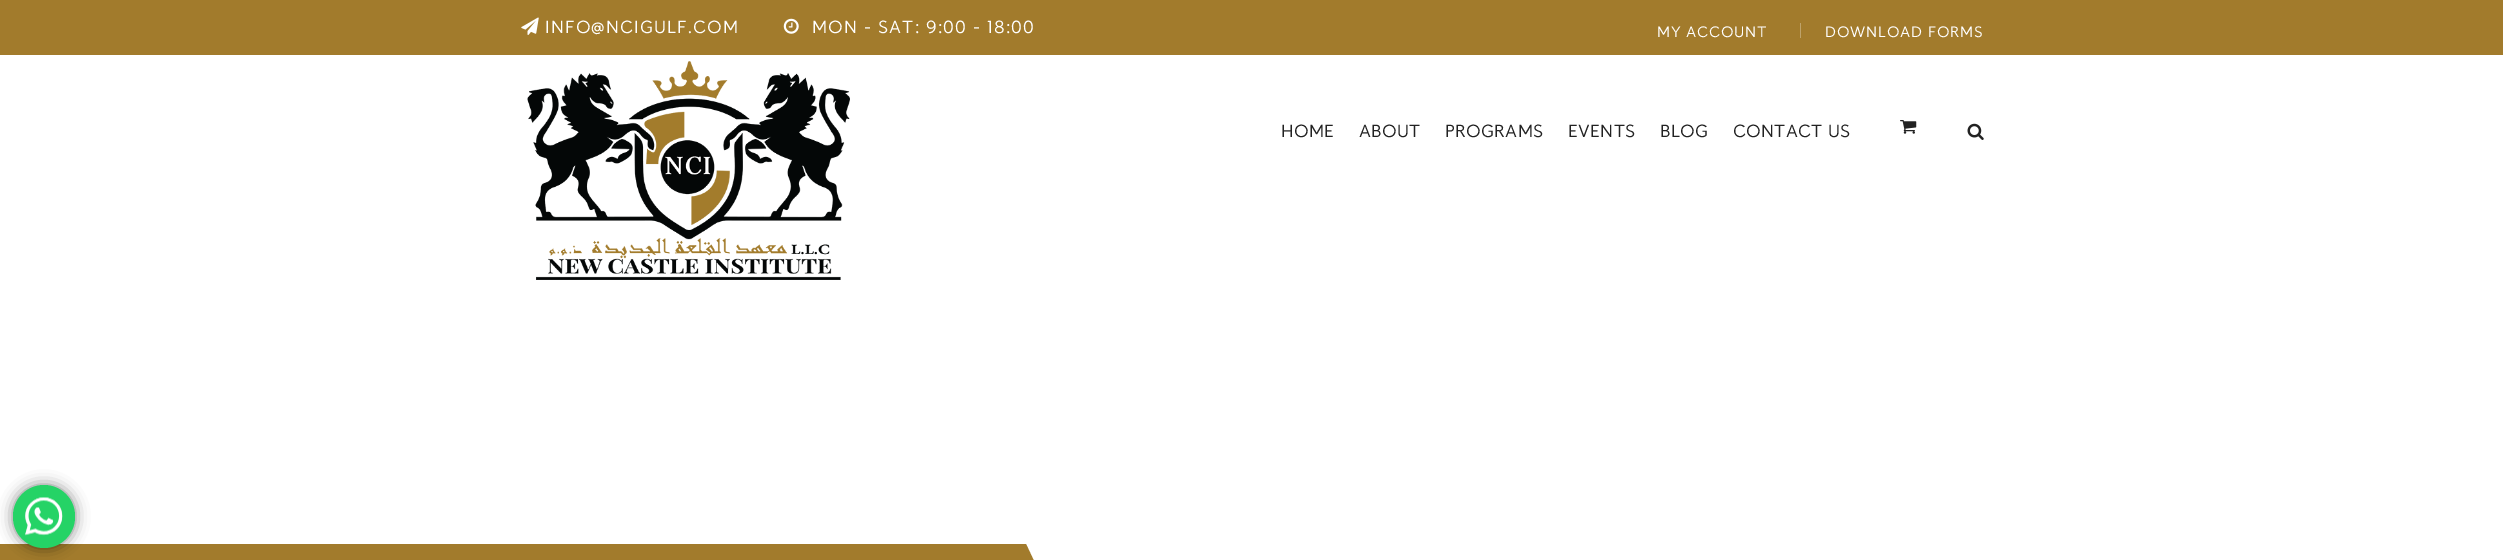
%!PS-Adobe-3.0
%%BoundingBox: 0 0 2503 560
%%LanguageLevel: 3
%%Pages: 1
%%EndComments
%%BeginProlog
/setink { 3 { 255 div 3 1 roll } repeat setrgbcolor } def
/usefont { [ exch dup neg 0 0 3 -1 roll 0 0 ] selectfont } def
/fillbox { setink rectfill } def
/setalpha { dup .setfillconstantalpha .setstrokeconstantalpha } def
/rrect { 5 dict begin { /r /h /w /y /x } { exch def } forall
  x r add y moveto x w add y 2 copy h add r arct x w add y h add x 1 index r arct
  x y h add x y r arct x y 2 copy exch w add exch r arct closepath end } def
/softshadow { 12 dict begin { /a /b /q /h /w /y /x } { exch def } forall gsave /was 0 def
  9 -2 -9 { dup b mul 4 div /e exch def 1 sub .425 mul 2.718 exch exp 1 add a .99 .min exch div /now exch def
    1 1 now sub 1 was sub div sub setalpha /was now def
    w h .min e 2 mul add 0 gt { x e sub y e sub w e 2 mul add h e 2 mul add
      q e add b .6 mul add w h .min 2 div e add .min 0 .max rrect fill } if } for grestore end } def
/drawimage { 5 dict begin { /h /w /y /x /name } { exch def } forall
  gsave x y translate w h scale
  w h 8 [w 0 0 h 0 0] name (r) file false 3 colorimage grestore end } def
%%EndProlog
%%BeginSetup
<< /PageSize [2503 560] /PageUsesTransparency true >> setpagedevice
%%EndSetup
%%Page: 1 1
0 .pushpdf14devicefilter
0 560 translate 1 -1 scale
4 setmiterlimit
0 0 2503 560 255 255 255 fillbox
0 0 2503 55 162 123 44 fillbox
(assets/img1.rgb) 521 17 18 18 drawimage
/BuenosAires-Light 17.5 usefont
255 255 255 setink
545 33 moveto 1.1 0 (INFO@NCIGULF.COM) ashow
(assets/img2.rgb) 783 18 16 16 drawimage
812 33 moveto 1.1 0 (MON - SAT: 9:00 - 18:00) ashow
/BuenosAires-Light 15 usefont
1657 37 moveto 0.75 0 (MY ACCOUNT) ashow
1800 23 1 15 190 163 107 fillbox
255 255 255 setink
1825 37 moveto 0.75 0 (DOWNLOAD FORMS) ashow
(assets/img3.rgb) 527 61 323 219 drawimage
/BuenosAires-Light 17.5 usefont
34 34 34 setink
1281 137 moveto 0.25 0 (HOME) ashow
1359 137 moveto 0.25 0 (ABOUT) ashow
1445 137 moveto 0.25 0 (PROGRAMS) ashow
1568 137 moveto 0.25 0 (EVENTS) ashow
1660 137 moveto 0.25 0 (BLOG) ashow
1733 137 moveto 0.25 0 (CONTACT US) ashow
(assets/img4.rgb) 1900 120 17 14 drawimage
(assets/img5.rgb) 1967 123 17 17 drawimage
0 544 934 16 162 123 44 fillbox
926 544 moveto 1026 544 lineto 1078 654 lineto 978 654 lineto closepath fill
0 0 0 setink
13 485 62 63 31 7 0.5 softshadow
37 211 102 setink
13 485 62 63 31 rrect fill
(assets/img6.rgb) 25 497 38 39 drawimage
.poppdf14devicefilter showpage
%%EOF
